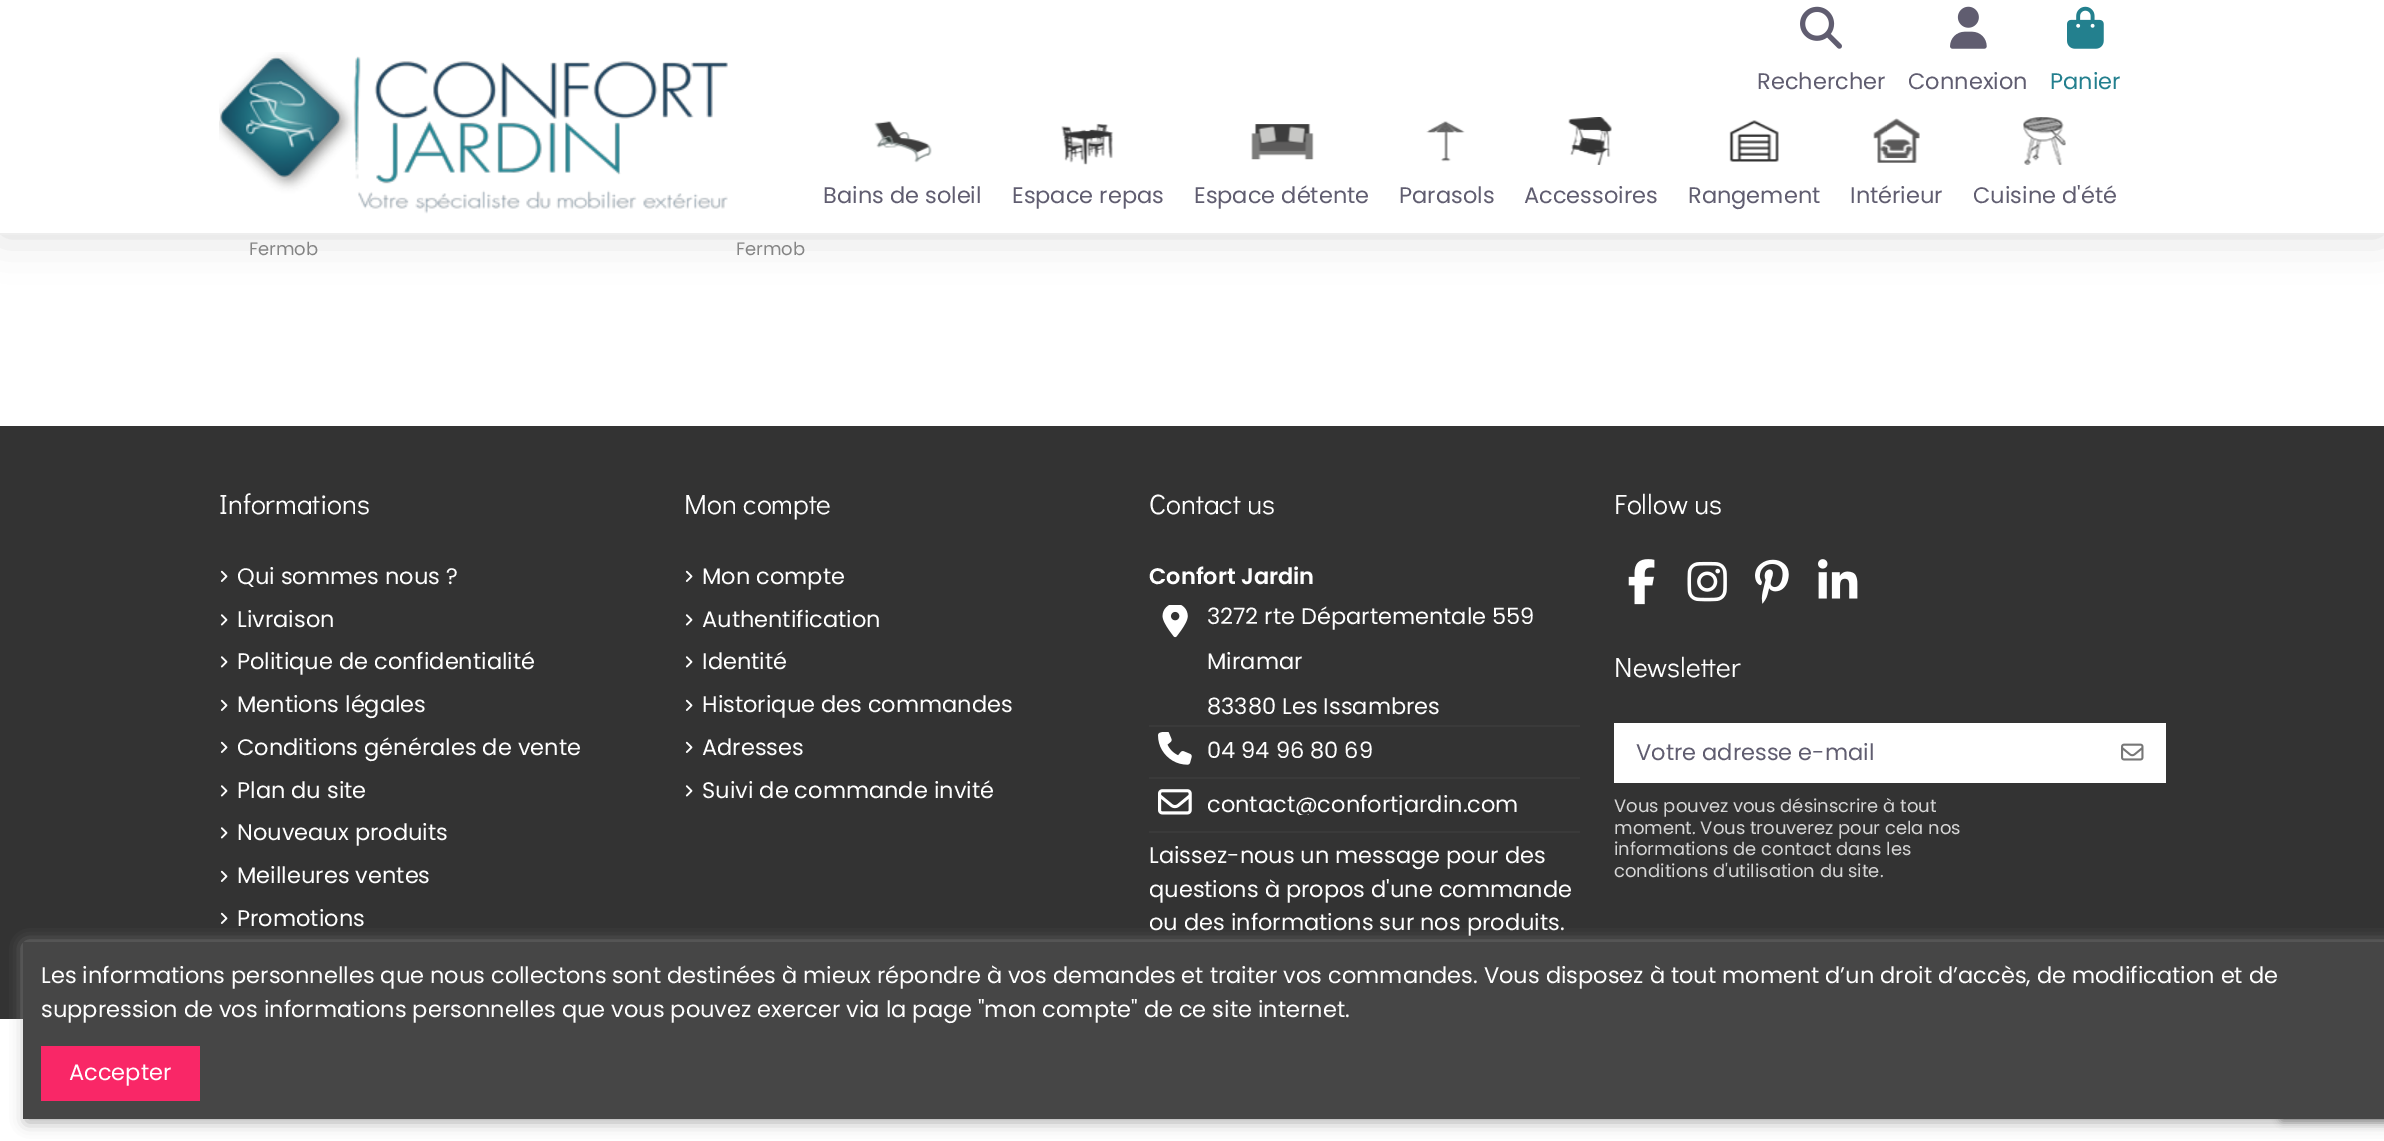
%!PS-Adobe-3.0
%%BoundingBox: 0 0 2384 1141
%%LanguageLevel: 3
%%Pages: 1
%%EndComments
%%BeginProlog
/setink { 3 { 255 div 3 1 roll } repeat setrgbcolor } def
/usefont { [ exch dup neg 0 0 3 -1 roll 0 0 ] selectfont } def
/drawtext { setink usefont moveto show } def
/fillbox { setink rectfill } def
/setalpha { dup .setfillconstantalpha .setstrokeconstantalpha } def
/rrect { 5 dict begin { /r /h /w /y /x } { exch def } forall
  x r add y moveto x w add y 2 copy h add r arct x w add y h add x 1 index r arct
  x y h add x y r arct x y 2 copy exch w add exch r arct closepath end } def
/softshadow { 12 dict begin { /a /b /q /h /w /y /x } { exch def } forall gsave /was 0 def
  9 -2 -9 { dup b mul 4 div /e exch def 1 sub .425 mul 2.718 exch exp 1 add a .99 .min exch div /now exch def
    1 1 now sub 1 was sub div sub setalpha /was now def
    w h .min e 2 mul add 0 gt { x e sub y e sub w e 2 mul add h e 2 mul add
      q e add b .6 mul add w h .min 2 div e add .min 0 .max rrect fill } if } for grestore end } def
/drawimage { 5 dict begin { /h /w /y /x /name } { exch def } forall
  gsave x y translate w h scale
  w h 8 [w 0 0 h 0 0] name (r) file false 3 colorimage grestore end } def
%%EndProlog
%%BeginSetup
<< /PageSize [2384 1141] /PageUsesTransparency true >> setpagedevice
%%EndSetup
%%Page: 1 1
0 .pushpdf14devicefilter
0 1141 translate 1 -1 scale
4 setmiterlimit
0 0 2384 1141 255 255 255 fillbox
0 0 0 setink
0 0 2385 234 0 22.5 0.15 softshadow
0 0 2384 233 255 255 255 fillbox
0 233 2384 2 238 238 238 fillbox
(assets/img1.rgb) 219 52 509 162 drawimage
(assets/img2.rgb) 1800 6 42 43 drawimage
(Rechercher) 1757 89 /Poppins-Regular 22.5 96 93 112 drawtext
(assets/img3.rgb) 1950 6 37 43 drawimage
(Connexion) 1908 89 /Poppins-Regular 22.5 96 93 112 drawtext
(assets/img4.rgb) 2067 6 37 43 drawimage
(Panier) 2050 89 /Poppins-Regular 22.5 35 127 142 drawtext
(assets/img5.rgb) 874 121 58 42 drawimage
(Bains de soleil) 823 203 /Poppins-Regular 22.5 96 93 112 drawtext
(assets/img6.rgb) 1061 123 53 42 drawimage
(Espace repas) 1012 203 /Poppins-Regular 22.5 96 93 112 drawtext
(assets/img7.rgb) 1251 124 63 36 drawimage
(Espace détente) 1194 203 /Poppins-Regular 22.5 96 93 112 drawtext
(assets/img8.rgb) 1426 121 39 41 drawimage
(Parasols) 1399 203 /Poppins-Regular 22.5 96 93 112 drawtext
(assets/img9.rgb) 1568 117 44 48 drawimage
(Accessoires) 1524 203 /Poppins-Regular 22.5 96 93 112 drawtext
(assets/img10.rgb) 1729 120 50 42 drawimage
(Rangement) 1688 203 /Poppins-Regular 22.5 96 93 112 drawtext
(assets/img11.rgb) 1873 118 47 45 drawimage
(Intérieur) 1850 203 /Poppins-Regular 22.5 96 93 112 drawtext
(assets/img12.rgb) 2023 117 43 48 drawimage
(Cuisine d'été) 1973 203 /Poppins-Regular 22.5 96 93 112 drawtext
(Fermob) 249 255 /Poppins-Regular 18 133 133 133 drawtext
(Fermob) 736 255 /Poppins-Regular 18 133 133 133 drawtext
0 426 2384 593 51 51 51 fillbox
(Informations) 219 514 /DidactGothic-Regular 28 255 255 255 drawtext
(assets/img13.rgb) 220 570 8 12 drawimage
(Qui sommes nous ?) 237 584 /Poppins-Regular 22.5 255 255 255 drawtext
(assets/img14.rgb) 220 614 8 12 drawimage
(Livraison) 237 627 /Poppins-Regular 22.5 255 255 255 drawtext
(assets/img14.rgb) 220 656 8 12 drawimage
(Politique de confidentialité) 237 669 /Poppins-Regular 22.5 255 255 255 drawtext
(assets/img13.rgb) 220 699 8 12 drawimage
(Mentions légales) 237 712 /Poppins-Regular 22.5 255 255 255 drawtext
(assets/img13.rgb) 220 741 8 12 drawimage
(Conditions générales de vente) 237 755 /Poppins-Regular 22.5 255 255 255 drawtext
(assets/img14.rgb) 220 785 8 12 drawimage
(Plan du site) 237 798 /Poppins-Regular 22.5 255 255 255 drawtext
(assets/img14.rgb) 220 827 8 12 drawimage
(Nouveaux produits) 237 840 /Poppins-Regular 22.5 255 255 255 drawtext
(assets/img13.rgb) 220 870 8 12 drawimage
(Meilleures ventes) 237 883 /Poppins-Regular 22.5 255 255 255 drawtext
(assets/img13.rgb) 220 912 8 12 drawimage
(Promotions) 237 926 /Poppins-Regular 22.5 255 255 255 drawtext
(Mon compte) 684 514 /DidactGothic-Regular 28 255 255 255 drawtext
(assets/img13.rgb) 685 570 8 12 drawimage
(Mon compte) 702 584 /Poppins-Regular 22.5 255 255 255 drawtext
(assets/img14.rgb) 685 614 8 12 drawimage
(Authentification) 702 627 /Poppins-Regular 22.5 255 255 255 drawtext
(assets/img14.rgb) 685 656 8 12 drawimage
(Identité) 702 669 /Poppins-Regular 22.5 255 255 255 drawtext
(assets/img13.rgb) 685 699 8 12 drawimage
(Historique des commandes) 702 712 /Poppins-Regular 22.5 255 255 255 drawtext
(assets/img13.rgb) 685 741 8 12 drawimage
(Adresses) 702 755 /Poppins-Regular 22.5 255 255 255 drawtext
(assets/img14.rgb) 685 785 8 12 drawimage
(Suivi de commande invité) 702 798 /Poppins-Regular 22.5 255 255 255 drawtext
(Contact us) 1149 514 /DidactGothic-Regular 28 255 255 255 drawtext
(Confort Jardin) 1149 584 /Poppins-SemiBold 22.5 255 255 255 drawtext
(assets/img15.rgb) 1162 605 26 33 drawimage
(3272 rte Départementale 559) 1207 624 /Poppins-Regular 22.5 255 255 255 drawtext
(Miramar) 1207 669 /Poppins-Regular 22.5 255 255 255 drawtext
(83380 Les Issambres) 1207 714 /Poppins-Regular 22.5 255 255 255 drawtext
1149 725 431 2 58 58 58 fillbox
(assets/img16.rgb) 1158 732 34 33 drawimage
(04 94 96 80 69) 1207 758 /Poppins-Regular 22.5 255 255 255 drawtext
1149 777 431 2 58 58 58 fillbox
(assets/img17.rgb) 1158 789 34 26 drawimage
gsave
1208 792 312 23 rectclip
(contact@confortjardin.com) 1207 812 /Poppins-Regular 22.5 255 255 255 drawtext
grestore
1149 831 431 2 58 58 58 fillbox
(Laissez-nous un message pour des) 1149 863 /Poppins-Regular 22.5 255 255 255 drawtext
(questions à propos d'une commande) 1149 897 /Poppins-Regular 22.5 255 255 255 drawtext
(ou des informations sur nos produits.) 1149 930 /Poppins-Regular 22.5 255 255 255 drawtext
(Follow us) 1614 514 /DidactGothic-Regular 28 255 255 255 drawtext
(assets/img18.rgb) 1628 559 27 46 drawimage
(assets/img19.rgb) 1687 561 40 41 drawimage
(assets/img20.rgb) 1755 559 34 45 drawimage
(assets/img21.rgb) 1818 559 40 40 drawimage
(Newsletter) 1614 677 /DidactGothic-Regular 28 255 255 255 drawtext
1614 723 552 60 255 255 255 fillbox
(Votre adresse e-mail) 1636 760 /Poppins-Regular 22.5 96 93 112 drawtext
(assets/img22.rgb) 2121 743 23 18 drawimage
(Vous pouvez vous désinscrire à tout) 1614 812 /Poppins-Regular 18 214 214 214 drawtext
(moment. Vous trouverez pour cela nos) 1614 834 /Poppins-Regular 18 214 214 214 drawtext
(informations de contact dans les) 1614 855 /Poppins-Regular 18 214 214 214 drawtext
(conditions d'utilisation du site.) 1614 877 /Poppins-Regular 18 214 214 214 drawtext
169 169 169 setink
26 945 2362 177 0 7.5 1 softshadow
128 128 128 setink
2280 1031 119 90 3 4 1 softshadow
23 942 2361 177 70 70 70 fillbox
(Les informations personnelles que nous collectons sont destinées à mieux répondre à vos demandes et traiter vos commandes. Vous disposez à tout moment d’un droit d’accès, de modification et de) 41 983 /Poppins-Regular 22.5 255 255 255 drawtext
(suppression de vos informations personnelles que vous pouvez exercer via la page "mon compte" de ce site internet.) 41 1017 /Poppins-Regular 22.5 255 255 255 drawtext
41 1046 159 55 249 39 103 fillbox
(Accepter) 69 1080 /Poppins-Regular 22.5 255 255 255 drawtext
.poppdf14devicefilter showpage
%%EOF
